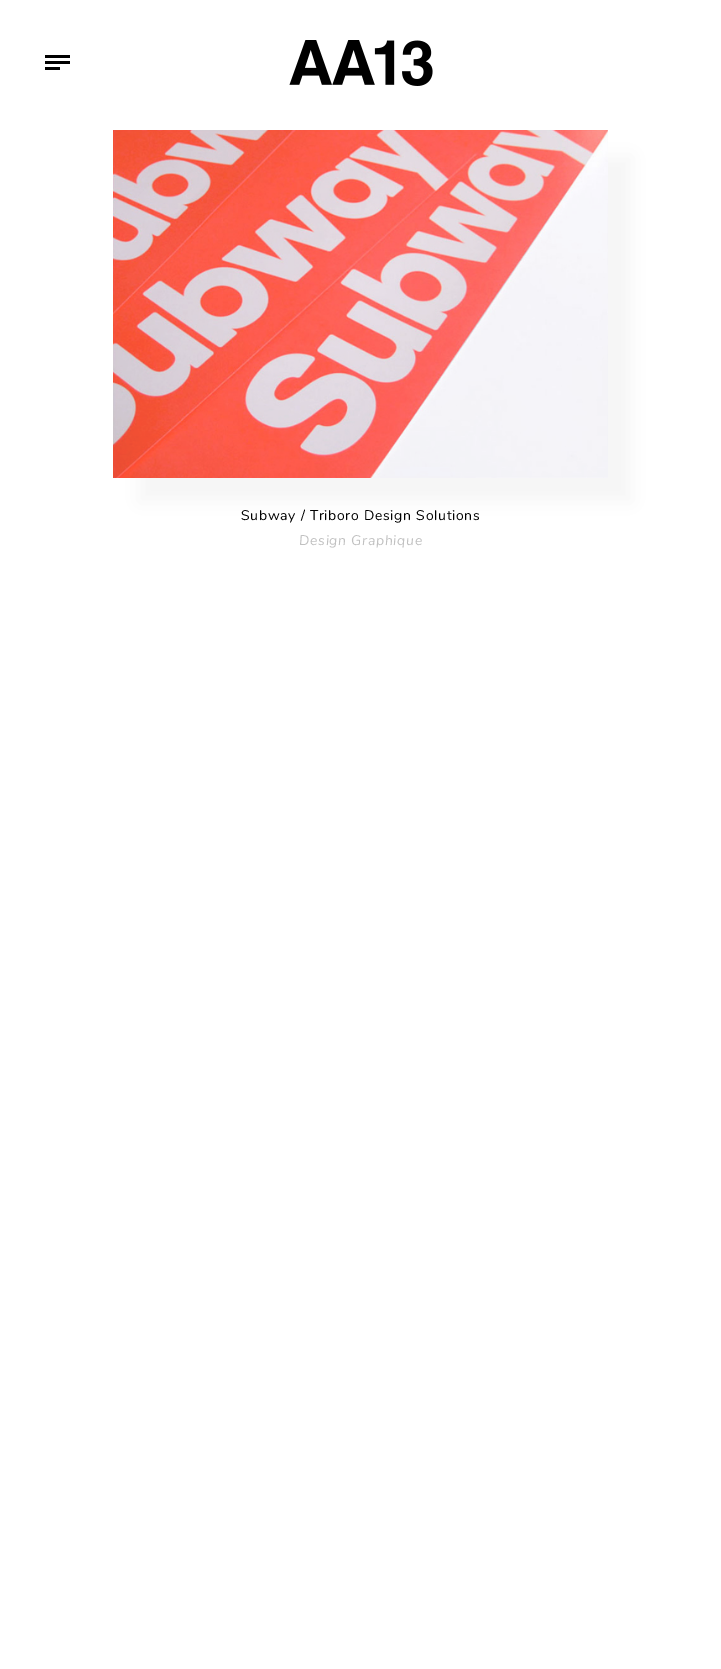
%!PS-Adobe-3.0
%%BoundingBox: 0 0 721 1669
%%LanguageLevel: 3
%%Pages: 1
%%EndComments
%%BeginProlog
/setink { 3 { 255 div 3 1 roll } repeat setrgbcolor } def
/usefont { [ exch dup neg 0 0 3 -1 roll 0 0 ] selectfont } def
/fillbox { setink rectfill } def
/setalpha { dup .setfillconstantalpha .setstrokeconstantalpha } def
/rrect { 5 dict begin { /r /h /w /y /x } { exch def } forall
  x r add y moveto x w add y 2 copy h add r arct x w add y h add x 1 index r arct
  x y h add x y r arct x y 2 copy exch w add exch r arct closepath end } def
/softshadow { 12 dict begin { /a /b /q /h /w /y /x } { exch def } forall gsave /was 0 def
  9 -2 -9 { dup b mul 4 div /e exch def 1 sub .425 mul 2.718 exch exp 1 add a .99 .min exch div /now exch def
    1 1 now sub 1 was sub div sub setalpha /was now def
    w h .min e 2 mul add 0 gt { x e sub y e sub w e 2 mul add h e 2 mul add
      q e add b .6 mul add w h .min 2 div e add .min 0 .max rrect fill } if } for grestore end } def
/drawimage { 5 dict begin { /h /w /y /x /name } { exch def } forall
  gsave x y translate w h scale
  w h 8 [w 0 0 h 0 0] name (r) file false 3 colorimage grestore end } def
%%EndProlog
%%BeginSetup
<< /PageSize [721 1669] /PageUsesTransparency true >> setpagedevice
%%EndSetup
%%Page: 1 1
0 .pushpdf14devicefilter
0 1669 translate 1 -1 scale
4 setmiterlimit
0 0 721 1669 255 255 255 fillbox
45 55 25 3 0 0 0 fillbox
45 61 25 3 0 0 0 fillbox
45 67 15 3 0 0 0 fillbox
(assets/img1.rgb) 289 40 144 46 drawimage
gsave
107 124 moveto 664 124 lineto 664 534 lineto 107 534 lineto closepath 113 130 moveto 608 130 lineto 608 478 lineto 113 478 lineto closepath eoclip newpath
138 155 495 348 0 10 0.04 softshadow
grestore
(assets/img2.rgb) 113 130 495 348 drawimage
/Nunito-Regular 14 usefont
241 520 moveto 0.7 0 (Subway / Triboro Design Solutions) ashow
/Nunito-Italic 14 usefont
193 193 193 setink
299 545 moveto 0.7 0 (Design Graphique) ashow
.poppdf14devicefilter showpage
%%EOF
